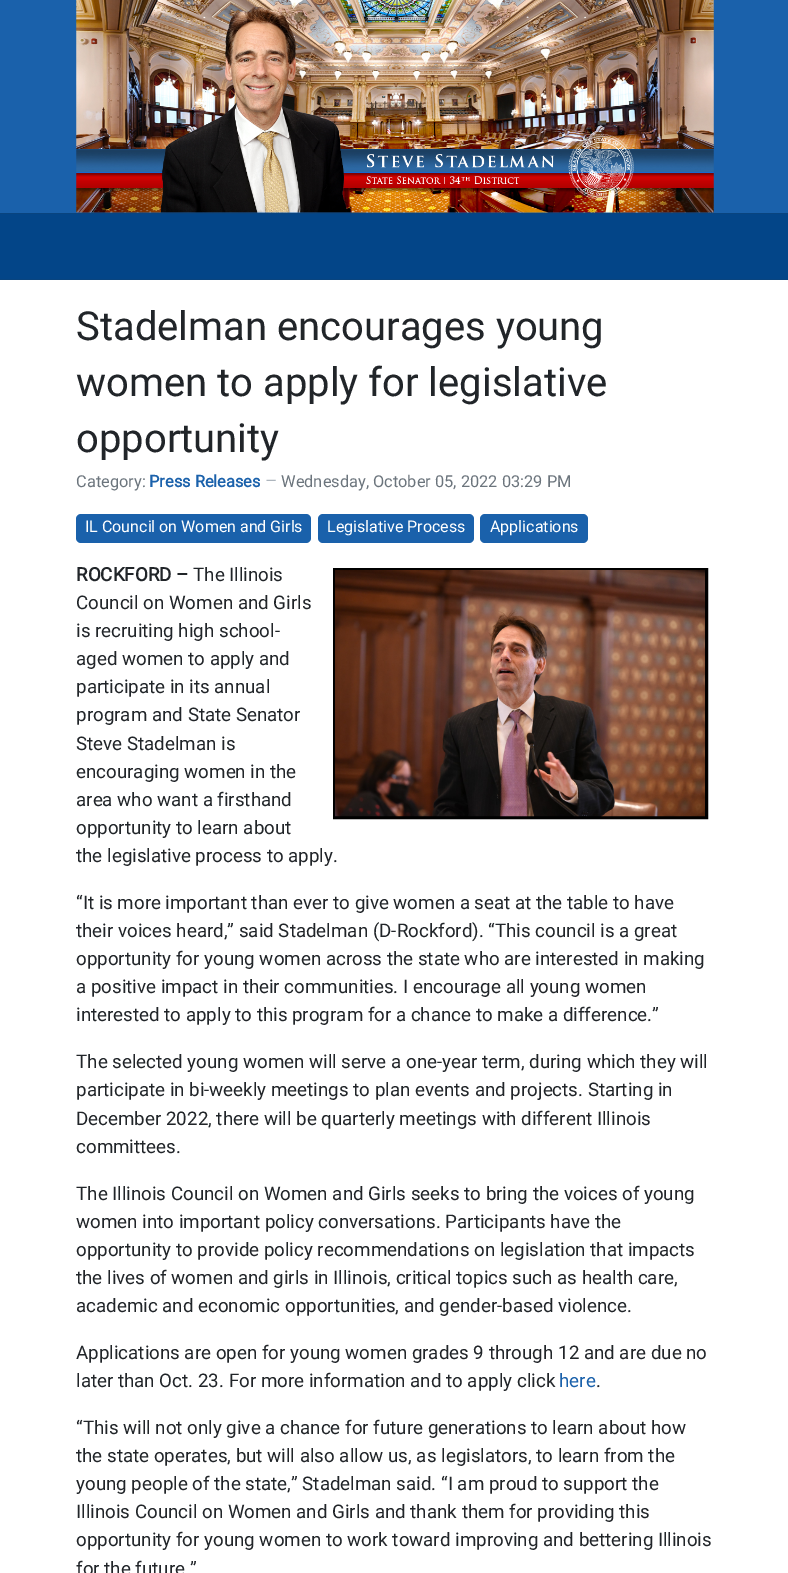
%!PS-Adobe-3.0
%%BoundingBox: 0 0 788 1573
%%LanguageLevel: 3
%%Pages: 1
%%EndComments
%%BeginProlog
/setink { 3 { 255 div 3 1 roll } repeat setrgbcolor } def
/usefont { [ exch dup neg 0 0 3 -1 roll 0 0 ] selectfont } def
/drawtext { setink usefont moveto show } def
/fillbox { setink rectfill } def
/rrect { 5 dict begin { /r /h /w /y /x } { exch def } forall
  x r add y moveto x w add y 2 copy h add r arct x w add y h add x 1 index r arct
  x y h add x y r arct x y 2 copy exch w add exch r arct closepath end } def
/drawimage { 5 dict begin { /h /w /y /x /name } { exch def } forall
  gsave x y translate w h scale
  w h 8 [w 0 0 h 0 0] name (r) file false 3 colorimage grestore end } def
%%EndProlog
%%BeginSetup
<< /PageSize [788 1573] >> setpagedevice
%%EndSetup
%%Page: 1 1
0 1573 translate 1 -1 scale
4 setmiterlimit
0 0 788 1573 255 255 255 fillbox
0 0 788 213 26 97 171 fillbox
(assets/img1.rgb) 76 0 638 213 drawimage
0 214 788 65 3 69 136 fillbox
0 213 788 1 9 68 127 fillbox
0 279 788 1 9 68 127 fillbox
(Stadelman encourages young) 76 340 /Roboto-Regular 40 33 37 41 drawtext
(women to apply for legislative) 76 396 /Roboto-Regular 40 33 37 41 drawtext
(opportunity) 76 452 /Roboto-Regular 40 33 37 41 drawtext
(Category:) 76 487 /Roboto-Regular 16.4 108 117 125 drawtext
(Press Releases) 149 487 /Roboto-Bold 16.4 26 97 171 drawtext
(–) 265 487 /Roboto-Regular 18.75 173 181 189 drawtext
(Wednesday, October 05, 2022 03:29 PM) 281 487 /Roboto-Regular 16.4 108 117 125 drawtext
26 97 171 setink
76 514 235 29 5 rrect fill
(IL Council on Women and Girls) 85 532 /Roboto-Regular 16 255 255 255 drawtext
26 97 171 setink
318 514 156 29 5 rrect fill
(Legislative Process) 327 532 /Roboto-Regular 16 255 255 255 drawtext
26 97 171 setink
480 514 108 29 5 rrect fill
(Applications) 490 532 /Roboto-Regular 16 255 255 255 drawtext
(ROCKFORD –) 76 581 /Roboto-Bold 18.75 33 37 41 drawtext
0 0 0 setink
3 setlinewidth
334.5 569.5 372 248 rectstroke
(assets/img2.rgb) 335 570 370 247 drawimage
(The Illinois) 193 581 /Roboto-Regular 18.75 33 37 41 drawtext
(Council on Women and Girls) 76 609 /Roboto-Regular 18.75 33 37 41 drawtext
(is recruiting high school-) 76 637 /Roboto-Regular 18.75 33 37 41 drawtext
(aged women to apply and) 76 665 /Roboto-Regular 18.75 33 37 41 drawtext
(participate in its annual) 76 693 /Roboto-Regular 18.75 33 37 41 drawtext
(program and State Senator) 76 721 /Roboto-Regular 18.75 33 37 41 drawtext
(Steve Stadelman is) 76 750 /Roboto-Regular 18.75 33 37 41 drawtext
(encouraging women in the) 76 778 /Roboto-Regular 18.75 33 37 41 drawtext
(area who want a firsthand) 76 806 /Roboto-Regular 18.75 33 37 41 drawtext
(opportunity to learn about) 76 834 /Roboto-Regular 18.75 33 37 41 drawtext
(the legislative process to apply.) 76 862 /Roboto-Regular 18.75 33 37 41 drawtext
(“It is more important than ever to give women a seat at the table to have) 76 909 /Roboto-Regular 18.75 33 37 41 drawtext
(their voices heard,” said Stadelman \(D-Rockford\). “This council is a great) 76 937 /Roboto-Regular 18.75 33 37 41 drawtext
(opportunity for young women across the state who are interested in making) 76 965 /Roboto-Regular 18.75 33 37 41 drawtext
(a positive impact in their communities. I encourage all young women) 76 993 /Roboto-Regular 18.75 33 37 41 drawtext
(interested to apply to this program for a chance to make a difference.”) 76 1021 /Roboto-Regular 18.75 33 37 41 drawtext
(The selected young women will serve a one-year term, during which they will) 76 1068 /Roboto-Regular 18.75 33 37 41 drawtext
(participate in bi-weekly meetings to plan events and projects. Starting in) 76 1096 /Roboto-Regular 18.75 33 37 41 drawtext
(December 2022, there will be quarterly meetings with different Illinois) 76 1125 /Roboto-Regular 18.75 33 37 41 drawtext
(committees.) 76 1153 /Roboto-Regular 18.75 33 37 41 drawtext
(The Illinois Council on Women and Girls seeks to bring the voices of young) 76 1200 /Roboto-Regular 18.75 33 37 41 drawtext
(women into important policy conversations. Participants have the) 76 1228 /Roboto-Regular 18.75 33 37 41 drawtext
(opportunity to provide policy recommendations on legislation that impacts) 76 1256 /Roboto-Regular 18.75 33 37 41 drawtext
(the lives of women and girls in Illinois, critical topics such as health care,) 76 1284 /Roboto-Regular 18.75 33 37 41 drawtext
(academic and economic opportunities, and gender-based violence.) 76 1312 /Roboto-Regular 18.75 33 37 41 drawtext
(Applications are open for young women grades 9 through 12 and are due no) 76 1359 /Roboto-Regular 18.75 33 37 41 drawtext
(later than Oct. 23. For more information and to apply click) 76 1387 /Roboto-Regular 18.75 33 37 41 drawtext
(here) 559 1387 /Roboto-Regular 18.75 26 97 171 drawtext
(.) 596 1387 /Roboto-Regular 18.75 33 37 41 drawtext
(“This will not only give a chance for future generations to learn about how) 76 1434 /Roboto-Regular 18.75 33 37 41 drawtext
(the state operates, but will also allow us, as legislators, to learn from the) 76 1462 /Roboto-Regular 18.75 33 37 41 drawtext
(young people of the state,” Stadelman said. “I am proud to support the) 76 1490 /Roboto-Regular 18.75 33 37 41 drawtext
(Illinois Council on Women and Girls and thank them for providing this) 76 1518 /Roboto-Regular 18.75 33 37 41 drawtext
(opportunity for young women to work toward improving and bettering Illinois) 76 1546 /Roboto-Regular 18.75 33 37 41 drawtext
(for the future.”) 76 1575 /Roboto-Regular 18.75 33 37 41 drawtext
showpage
%%EOF
